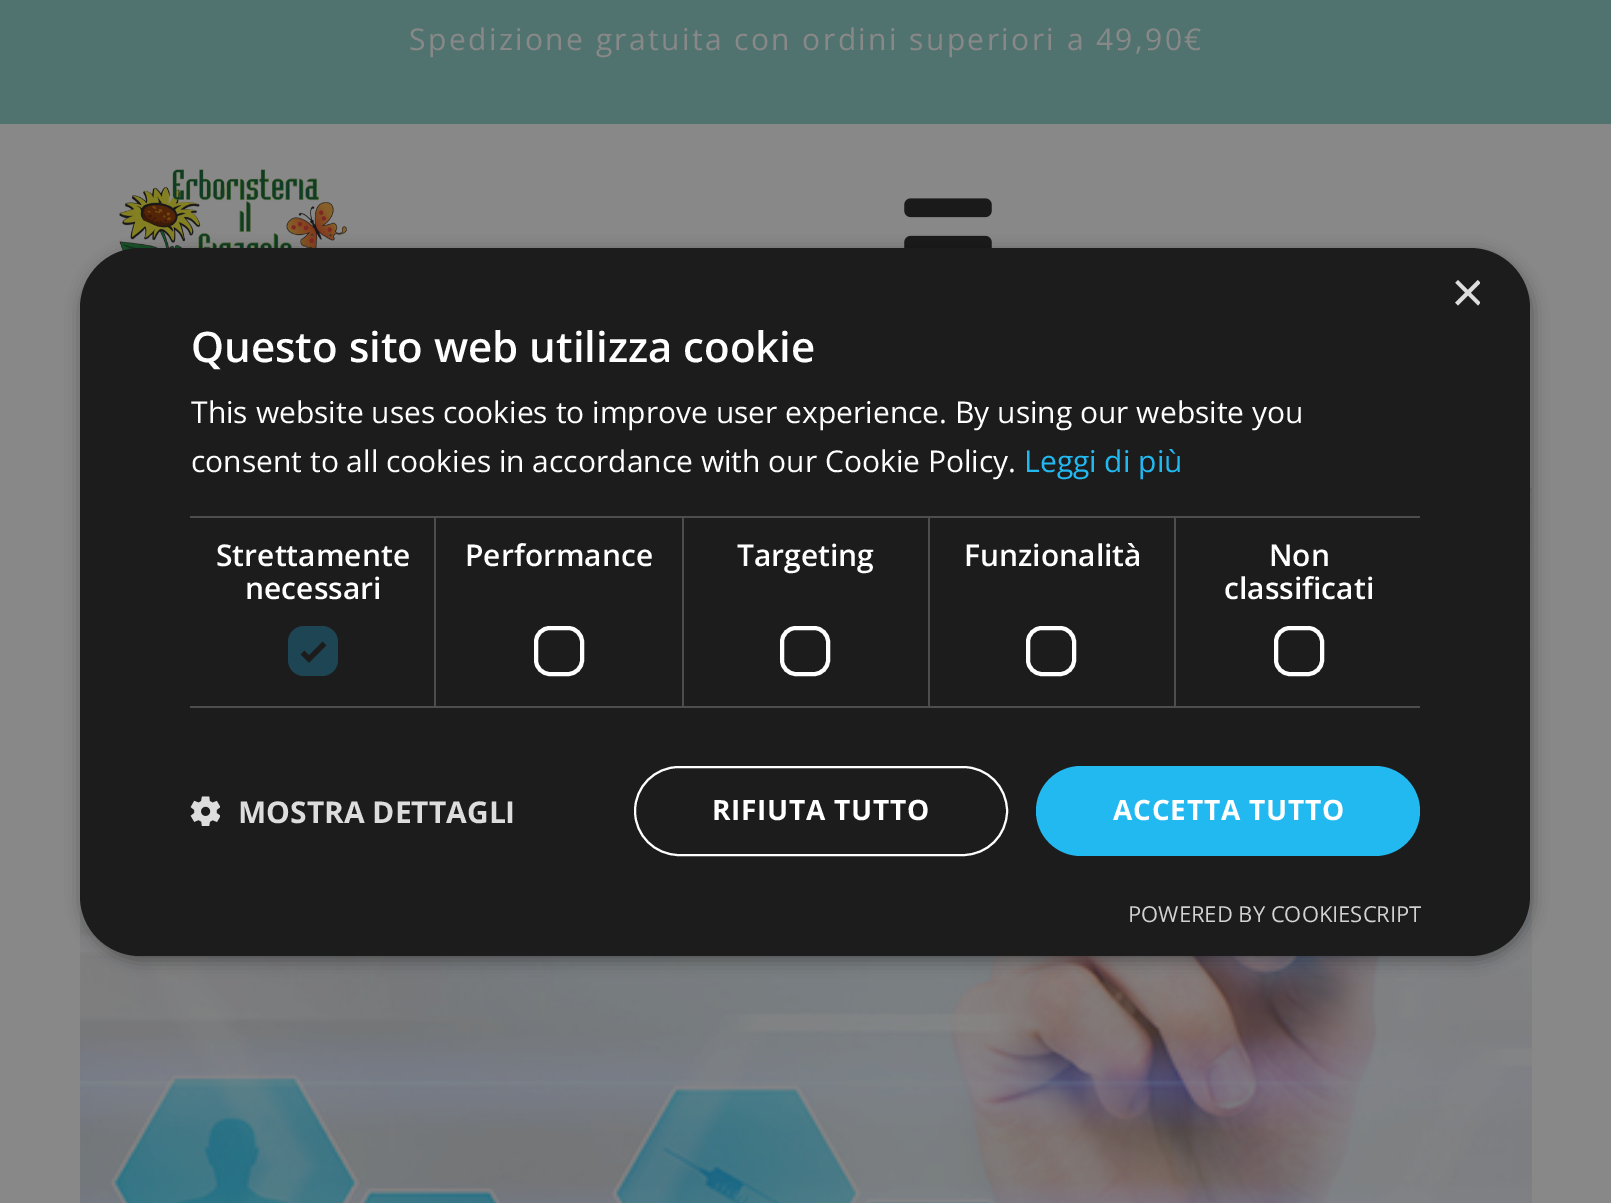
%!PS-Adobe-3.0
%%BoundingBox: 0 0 1611 1203
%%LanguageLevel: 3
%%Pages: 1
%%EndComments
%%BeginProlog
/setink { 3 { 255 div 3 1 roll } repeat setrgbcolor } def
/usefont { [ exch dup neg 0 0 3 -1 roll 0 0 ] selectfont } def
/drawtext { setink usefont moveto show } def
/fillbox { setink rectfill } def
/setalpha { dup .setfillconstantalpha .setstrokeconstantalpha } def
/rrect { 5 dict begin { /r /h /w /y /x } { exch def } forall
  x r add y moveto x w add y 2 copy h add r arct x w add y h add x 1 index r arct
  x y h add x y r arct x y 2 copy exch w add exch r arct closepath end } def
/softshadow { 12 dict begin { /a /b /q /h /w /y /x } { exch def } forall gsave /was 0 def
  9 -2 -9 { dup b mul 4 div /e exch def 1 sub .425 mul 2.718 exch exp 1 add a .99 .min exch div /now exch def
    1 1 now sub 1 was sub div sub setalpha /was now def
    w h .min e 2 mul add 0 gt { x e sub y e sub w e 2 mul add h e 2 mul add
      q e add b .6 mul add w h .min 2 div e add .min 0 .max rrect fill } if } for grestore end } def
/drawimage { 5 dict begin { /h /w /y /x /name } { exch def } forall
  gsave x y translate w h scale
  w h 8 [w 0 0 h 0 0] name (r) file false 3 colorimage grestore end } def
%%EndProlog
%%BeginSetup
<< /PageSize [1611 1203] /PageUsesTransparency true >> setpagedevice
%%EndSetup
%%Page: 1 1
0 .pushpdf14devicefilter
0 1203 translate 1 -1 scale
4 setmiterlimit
0 0 1611 1203 136 136 136 fillbox
0 0 1611 124 80 115 111 fillbox
/OpenSans-Regular 30 usefont
136 136 136 setink
409 50 moveto 2.4 0 (Spedizione gratuita con ordini superiori a 49,90€) ashow
(assets/img1.rgb) 119 169 228 82 drawimage
(assets/img2.rgb) 904 198 88 50 drawimage
(assets/img3.rgb) 80 488 1452 715 drawimage
0 0 0 setink
82 252 1450 708 60 8 0.35 softshadow
28 28 28 setink
80 248 1450 708 60 rrect fill
gsave
1450 280 30 30 rectclip
(×) 1451 312 /LiberationSans-Regular 58 221 221 221 drawtext
grestore
(Questo sito web utilizza cookie) 191 362 /OpenSans-SemiBold 42 255 255 255 drawtext
(This website uses cookies to improve user experience. By using our website you) 191 423 /OpenSans-Regular 30 255 255 255 drawtext
(consent to all cookies in accordance with our Cookie Policy.) 191 472 /OpenSans-Regular 30 255 255 255 drawtext
(Leggi di più) 1024 472 /OpenSans-Regular 30 34 184 240 drawtext
190 516 1230 2 77 77 77 fillbox
434 516 2 192 77 77 77 fillbox
190 706 246 2 77 77 77 fillbox
(Strettamente) 216 566 /OpenSans-SemiBold 30 255 255 255 drawtext
(necessari) 245 599 /OpenSans-SemiBold 30 255 255 255 drawtext
30 69 83 setink
288 626 50 50 16 rrect fill
28 28 28 setink
5.2 setlinewidth
302.5 652.5 moveto 309 659 lineto 324.5 643.5 lineto stroke
682 516 2 192 77 77 77 fillbox
436 706 248 2 77 77 77 fillbox
(Performance) 465 566 /OpenSans-SemiBold 30 255 255 255 drawtext
4 setlinewidth
536 628 46 46 14 rrect stroke
928 516 2 192 77 77 77 fillbox
684 706 246 2 77 77 77 fillbox
(Targeting) 737 566 /OpenSans-SemiBold 30 255 255 255 drawtext
782 628 46 46 14 rrect stroke
1174 516 2 192 77 77 77 fillbox
930 706 490 2 77 77 77 fillbox
(Funzionalità) 964 566 /OpenSans-SemiBold 30 255 255 255 drawtext
1028 628 46 46 14 rrect stroke
(Non) 1269 566 /OpenSans-SemiBold 30 255 255 255 drawtext
(classificati) 1224 599 /OpenSans-SemiBold 30 255 255 255 drawtext
1276 628 46 46 14 rrect stroke
(assets/img4.rgb) 190 796 30 30 drawimage
(MOSTRA DETTAGLI) 238 823 /OpenSans-Bold 30 221 221 221 drawtext
255 255 255 setink
2 setlinewidth
635 767 372 88 44 rrect stroke
/OpenSans-Bold 28 usefont
712 820 moveto 0.75 0 (RIFIUTA TUTTO) ashow
34 184 240 setink
1036 766 384 90 45 rrect fill
255 255 255 setink
1113 820 moveto 0.75 0 (ACCETTA TUTTO) ashow
(POWERED BY COOKIESCRIPT) 1128 922 /OpenSans-Regular 22 210 210 210 drawtext
.poppdf14devicefilter showpage
%%EOF
